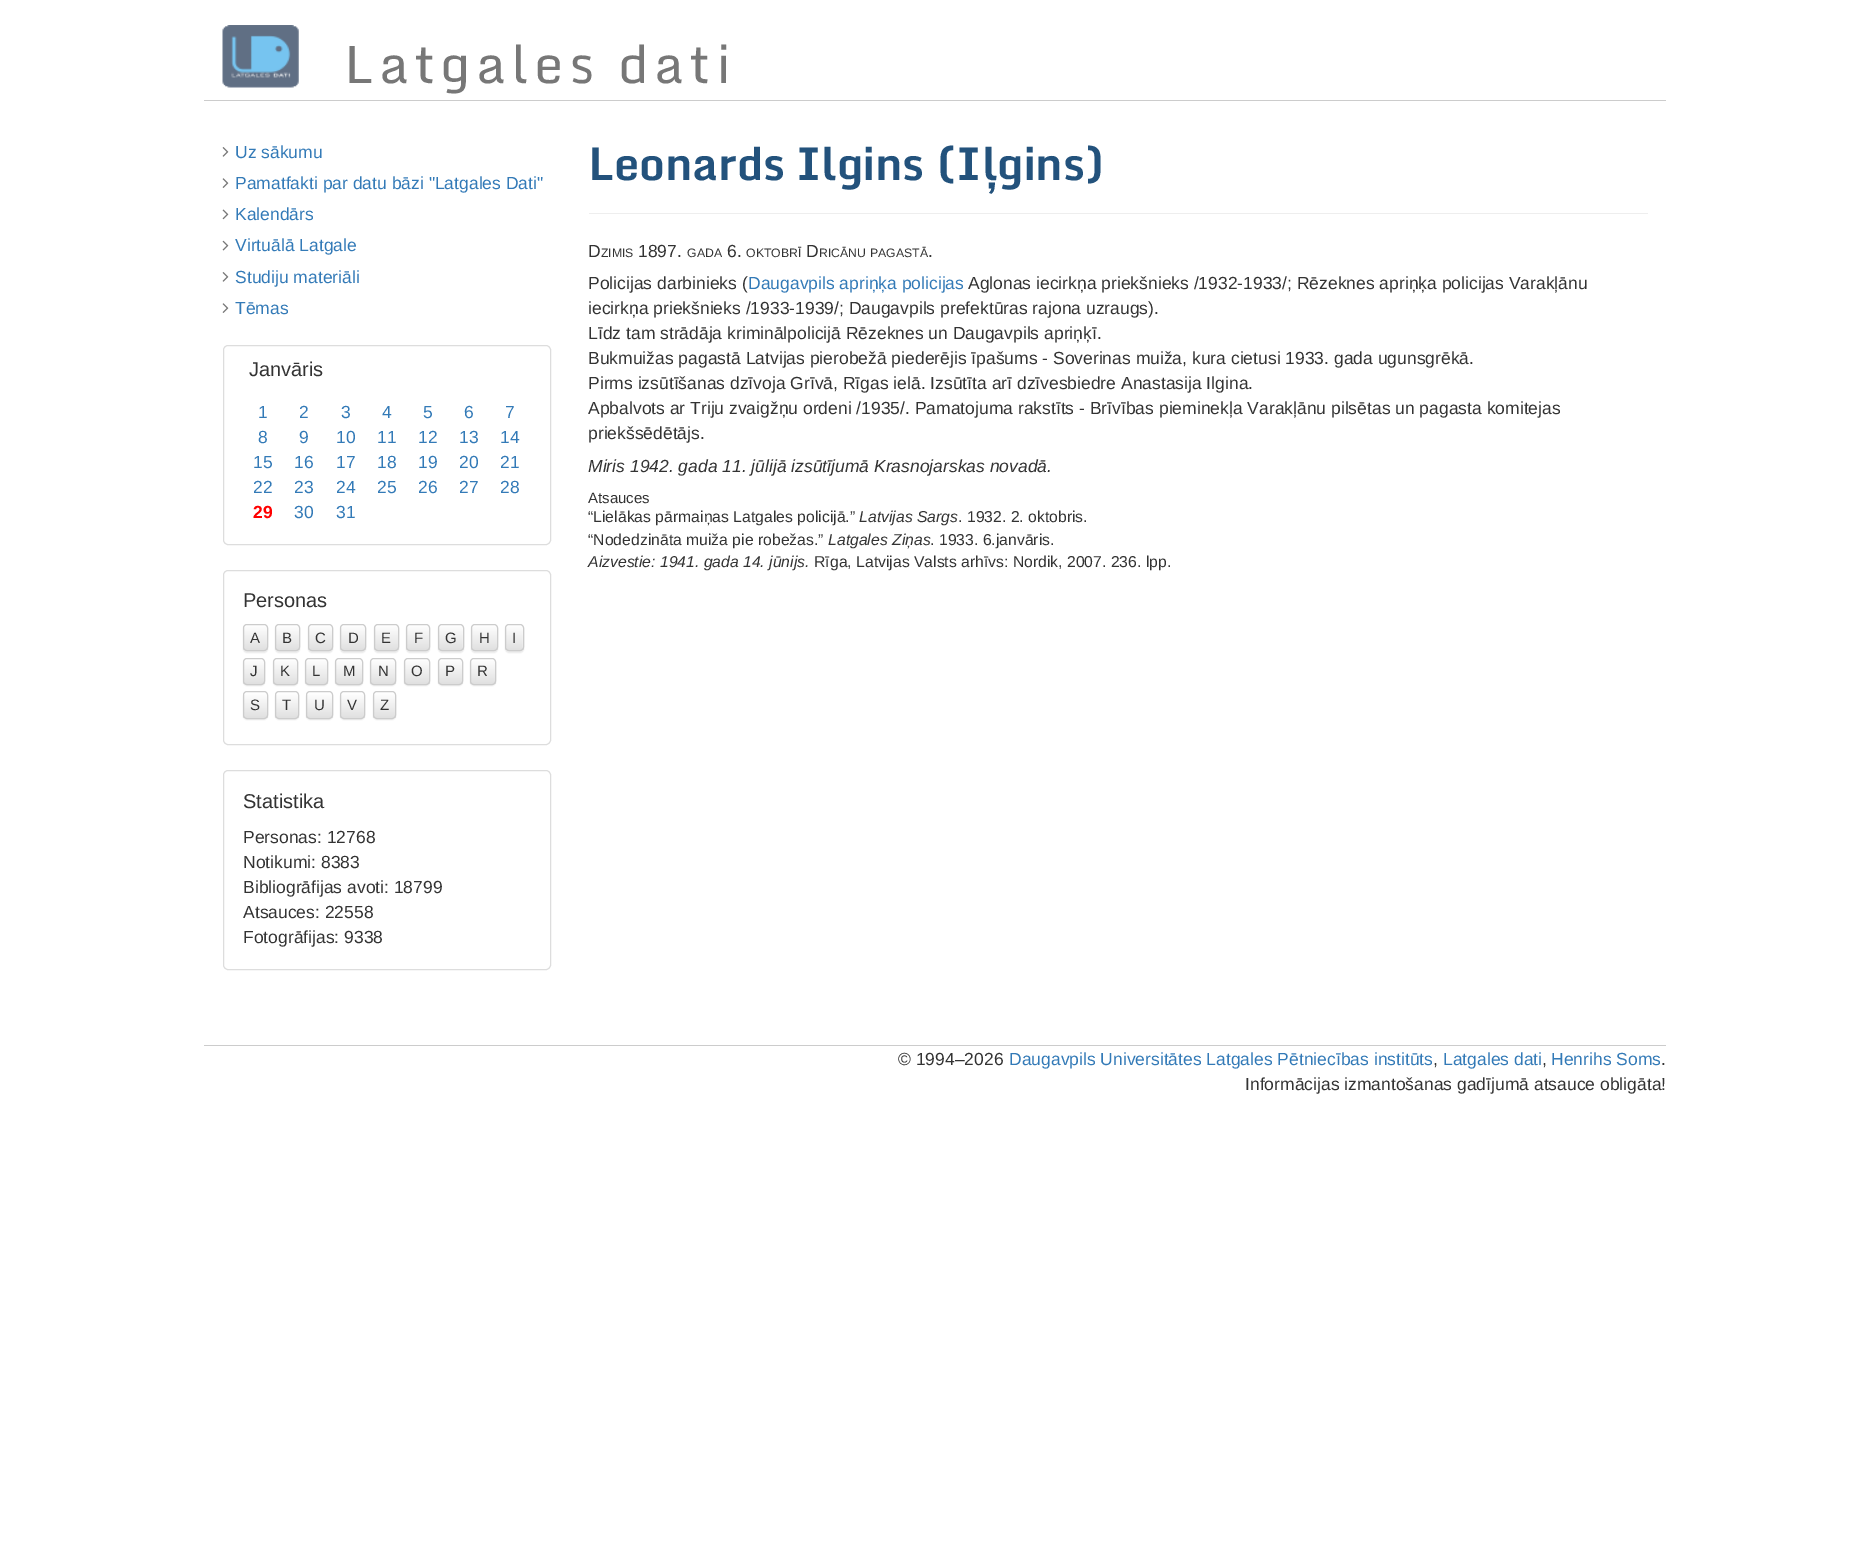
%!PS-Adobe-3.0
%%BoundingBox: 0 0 1869 1543
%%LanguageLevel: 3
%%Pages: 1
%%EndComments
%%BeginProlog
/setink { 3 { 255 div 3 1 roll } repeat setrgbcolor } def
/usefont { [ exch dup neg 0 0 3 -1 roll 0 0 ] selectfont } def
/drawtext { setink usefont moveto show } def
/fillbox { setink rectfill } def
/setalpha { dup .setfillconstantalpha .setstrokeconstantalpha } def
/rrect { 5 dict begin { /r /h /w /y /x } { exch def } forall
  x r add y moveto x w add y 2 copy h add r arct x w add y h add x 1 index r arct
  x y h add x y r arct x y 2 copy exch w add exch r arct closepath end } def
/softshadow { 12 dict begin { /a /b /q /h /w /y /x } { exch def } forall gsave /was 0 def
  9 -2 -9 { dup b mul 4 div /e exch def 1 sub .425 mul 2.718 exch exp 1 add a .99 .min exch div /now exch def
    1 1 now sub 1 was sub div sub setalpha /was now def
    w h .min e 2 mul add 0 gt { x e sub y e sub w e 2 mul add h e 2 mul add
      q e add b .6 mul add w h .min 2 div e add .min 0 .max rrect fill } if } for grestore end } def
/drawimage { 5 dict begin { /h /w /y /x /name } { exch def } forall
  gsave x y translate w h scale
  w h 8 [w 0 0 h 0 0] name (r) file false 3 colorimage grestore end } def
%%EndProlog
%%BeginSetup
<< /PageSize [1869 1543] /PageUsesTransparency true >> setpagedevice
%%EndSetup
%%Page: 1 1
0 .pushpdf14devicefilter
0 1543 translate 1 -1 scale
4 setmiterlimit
0 0 1869 1543 255 255 255 fillbox
204 100 1462 1 204 204 204 fillbox
(assets/img1.rgb) 222 25 77 63 drawimage
/Monda-Regular 52.5 usefont
119 119 119 setink
344 83 moveto 5.25 0 (Latgales dati) ashow
(assets/img2.rgb) 222 147 7 10 drawimage
(Uz sākumu) 235 158 /LiberationSans-Regular 17.5 51 122 183 drawtext
(assets/img3.rgb) 222 178 7 10 drawimage
(Pamatfakti par datu bāzi "Latgales Dati") 235 189 /LiberationSans-Regular 17.5 51 122 183 drawtext
(assets/img4.rgb) 222 209 7 11 drawimage
(Kalendārs) 235 220 /LiberationSans-Regular 17.5 51 122 183 drawtext
(assets/img5.rgb) 222 240 7 11 drawimage
(Virtuālā Latgale) 235 251 /LiberationSans-Regular 17.5 51 122 183 drawtext
(assets/img2.rgb) 222 272 7 10 drawimage
(Studiju materiāli) 235 283 /LiberationSans-Regular 17.5 51 122 183 drawtext
(assets/img3.rgb) 222 303 7 10 drawimage
(Tēmas) 235 314 /LiberationSans-Regular 17.5 51 122 183 drawtext
221 221 221 setink
223.5 345.5 327 199 4.5 rrect stroke
(Janvāris) 249 376 /LiberationSans-Regular 20 51 51 51 drawtext
(1) 258 418 /LiberationSans-Regular 17.5 51 122 183 drawtext
(2) 299 418 /LiberationSans-Regular 17.5 51 122 183 drawtext
(3) 341 418 /LiberationSans-Regular 17.5 51 122 183 drawtext
(4) 382 418 /LiberationSans-Regular 17.5 51 122 183 drawtext
(5) 423 418 /LiberationSans-Regular 17.5 51 122 183 drawtext
(6) 464 418 /LiberationSans-Regular 17.5 51 122 183 drawtext
(7) 505 418 /LiberationSans-Regular 17.5 51 122 183 drawtext
(8) 258 443 /LiberationSans-Regular 17.5 51 122 183 drawtext
(9) 299 443 /LiberationSans-Regular 17.5 51 122 183 drawtext
(10) 336 443 /LiberationSans-Regular 17.5 51 122 183 drawtext
(11) 377 443 /LiberationSans-Regular 17.5 51 122 183 drawtext
(12) 418 443 /LiberationSans-Regular 17.5 51 122 183 drawtext
(13) 459 443 /LiberationSans-Regular 17.5 51 122 183 drawtext
(14) 500 443 /LiberationSans-Regular 17.5 51 122 183 drawtext
(15) 253 468 /LiberationSans-Regular 17.5 51 122 183 drawtext
(16) 294 468 /LiberationSans-Regular 17.5 51 122 183 drawtext
(17) 336 468 /LiberationSans-Regular 17.5 51 122 183 drawtext
(18) 377 468 /LiberationSans-Regular 17.5 51 122 183 drawtext
(19) 418 468 /LiberationSans-Regular 17.5 51 122 183 drawtext
(20) 459 468 /LiberationSans-Regular 17.5 51 122 183 drawtext
(21) 500 468 /LiberationSans-Regular 17.5 51 122 183 drawtext
(22) 253 493 /LiberationSans-Regular 17.5 51 122 183 drawtext
(23) 294 493 /LiberationSans-Regular 17.5 51 122 183 drawtext
(24) 336 493 /LiberationSans-Regular 17.5 51 122 183 drawtext
(25) 377 493 /LiberationSans-Regular 17.5 51 122 183 drawtext
(26) 418 493 /LiberationSans-Regular 17.5 51 122 183 drawtext
(27) 459 493 /LiberationSans-Regular 17.5 51 122 183 drawtext
(28) 500 493 /LiberationSans-Regular 17.5 51 122 183 drawtext
(29) 253 518 /LiberationSans-Bold 17.5 255 0 0 drawtext
(30) 294 518 /LiberationSans-Regular 17.5 51 122 183 drawtext
(31) 336 518 /LiberationSans-Regular 17.5 51 122 183 drawtext
221 221 221 setink
223.5 570.5 327 174 4.5 rrect stroke
(Personas) 243 607 /LiberationSans-Regular 20 51 51 51 drawtext
0 0 0 setink
243 625 25 28 4 0.5 0.07 softshadow
gsave
243 624 25 27 4 rrect clip newpath
gsave 243 625 moveto 268 625 lineto 268 650 lineto 243 650 lineto closepath clip newpath
<< /ShadingType 2 /ColorSpace /DeviceRGB /Coords [255 625 255 650] /Extend [true true] /Function << /FunctionType 2 /Domain [0 1] /C0 [1 1 1] /C1 [0.878 0.878 0.878] /N 1 >> >> shfill grestore
grestore
204 204 204 setink
243.5 624.5 24 26 3.5 rrect stroke
(A) 250 643 /LiberationSans-Regular 15 51 51 51 drawtext
0 0 0 setink
275 625 25 28 4 0.5 0.07 softshadow
gsave
275 624 25 27 4 rrect clip newpath
gsave 275 625 moveto 300 625 lineto 300 650 lineto 275 650 lineto closepath clip newpath
<< /ShadingType 2 /ColorSpace /DeviceRGB /Coords [288 625 288 650] /Extend [true true] /Function << /FunctionType 2 /Domain [0 1] /C0 [1 1 1] /C1 [0.878 0.878 0.878] /N 1 >> >> shfill grestore
grestore
204 204 204 setink
275.5 624.5 24 26 3.5 rrect stroke
(B) 282 643 /LiberationSans-Regular 15 51 51 51 drawtext
0 0 0 setink
308 625 25 28 4 0.5 0.07 softshadow
gsave
308 624 25 27 4 rrect clip newpath
gsave 308 625 moveto 333 625 lineto 333 650 lineto 308 650 lineto closepath clip newpath
<< /ShadingType 2 /ColorSpace /DeviceRGB /Coords [320 625 320 650] /Extend [true true] /Function << /FunctionType 2 /Domain [0 1] /C0 [1 1 1] /C1 [0.878 0.878 0.878] /N 1 >> >> shfill grestore
grestore
204 204 204 setink
308.5 624.5 24 26 3.5 rrect stroke
(C) 315 643 /LiberationSans-Regular 15 51 51 51 drawtext
0 0 0 setink
340 625 26 28 4 0.5 0.07 softshadow
gsave
340 624 26 27 4 rrect clip newpath
gsave 340 625 moveto 366 625 lineto 366 650 lineto 340 650 lineto closepath clip newpath
<< /ShadingType 2 /ColorSpace /DeviceRGB /Coords [353 625 353 650] /Extend [true true] /Function << /FunctionType 2 /Domain [0 1] /C0 [1 1 1] /C1 [0.878 0.878 0.878] /N 1 >> >> shfill grestore
grestore
204 204 204 setink
340.5 624.5 25 26 3.5 rrect stroke
(D) 348 643 /LiberationSans-Regular 15 51 51 51 drawtext
0 0 0 setink
374 625 25 28 4 0.5 0.07 softshadow
gsave
374 624 25 27 4 rrect clip newpath
gsave 374 625 moveto 399 625 lineto 399 650 lineto 374 650 lineto closepath clip newpath
<< /ShadingType 2 /ColorSpace /DeviceRGB /Coords [386 625 386 650] /Extend [true true] /Function << /FunctionType 2 /Domain [0 1] /C0 [1 1 1] /C1 [0.878 0.878 0.878] /N 1 >> >> shfill grestore
grestore
204 204 204 setink
374.5 624.5 24 26 3.5 rrect stroke
(E) 381 643 /LiberationSans-Regular 15 51 51 51 drawtext
0 0 0 setink
406 625 24 28 4 0.5 0.07 softshadow
gsave
406 624 24 27 4 rrect clip newpath
gsave 406 625 moveto 430 625 lineto 430 650 lineto 406 650 lineto closepath clip newpath
<< /ShadingType 2 /ColorSpace /DeviceRGB /Coords [418 625 418 650] /Extend [true true] /Function << /FunctionType 2 /Domain [0 1] /C0 [1 1 1] /C1 [0.878 0.878 0.878] /N 1 >> >> shfill grestore
grestore
204 204 204 setink
406.5 624.5 23 26 3.5 rrect stroke
(F) 414 643 /LiberationSans-Regular 15 51 51 51 drawtext
0 0 0 setink
438 625 26 28 4 0.5 0.07 softshadow
gsave
438 624 26 27 4 rrect clip newpath
gsave 438 625 moveto 464 625 lineto 464 650 lineto 438 650 lineto closepath clip newpath
<< /ShadingType 2 /ColorSpace /DeviceRGB /Coords [451 625 451 650] /Extend [true true] /Function << /FunctionType 2 /Domain [0 1] /C0 [1 1 1] /C1 [0.878 0.878 0.878] /N 1 >> >> shfill grestore
grestore
0.15 setalpha
255 255 255 setink
441 626 moveto 460.5 626 lineto 463 626.5 462 634 462 635.5 curveto 462 649.5 lineto 462.5 649 463 648.5 463 647.5 curveto 463 627.5 lineto 463 626 462 625 460.5 625 curveto 441.5 625 lineto 440 625 439 626 439 627.5 curveto 439 629 lineto 439 627 440 626 441 626 curveto closepath fill
1 setalpha
204 204 204 setink
438.5 624.5 25 26 3.5 rrect stroke
(G) 445 643 /LiberationSans-Regular 15 51 51 51 drawtext
0 0 0 setink
471 625 27 28 4 0.5 0.07 softshadow
gsave
471 624 27 27 4 rrect clip newpath
gsave 471 625 moveto 498 625 lineto 498 650 lineto 471 650 lineto closepath clip newpath
<< /ShadingType 2 /ColorSpace /DeviceRGB /Coords [484 625 484 650] /Extend [true true] /Function << /FunctionType 2 /Domain [0 1] /C0 [1 1 1] /C1 [0.878 0.878 0.878] /N 1 >> >> shfill grestore
grestore
204 204 204 setink
471.5 624.5 26 26 3.5 rrect stroke
(H) 479 643 /LiberationSans-Regular 15 51 51 51 drawtext
0 0 0 setink
505 625 19 28 4 0.5 0.07 softshadow
gsave
505 624 19 27 4 rrect clip newpath
gsave 505 625 moveto 524 625 lineto 524 650 lineto 505 650 lineto closepath clip newpath
<< /ShadingType 2 /ColorSpace /DeviceRGB /Coords [514 625 514 650] /Extend [true true] /Function << /FunctionType 2 /Domain [0 1] /C0 [1 1 1] /C1 [0.878 0.878 0.878] /N 1 >> >> shfill grestore
grestore
0.15 setalpha
255 255 255 setink
509 626 moveto 522 626 522 622.5 522 636 curveto 522 649.5 lineto 523.5 648.5 523 646 523 644 curveto 523 631 lineto 523 623.5 522 625 514.5 625 curveto 506 625 506 624 506 632 curveto 506 630 506 626 509 626 curveto closepath 506.5 649 moveto 506 645 lineto 506 646 505.5 648 506.5 649 curveto closepath eofill
1 setalpha
204 204 204 setink
505.5 624.5 18 26 3.5 rrect stroke
(I) 512 643 /LiberationSans-Regular 15 51 51 51 drawtext
0 0 0 setink
243 659 22 27 4 0.5 0.07 softshadow
gsave
243 658 22 27 4 rrect clip newpath
gsave 243 659 moveto 265 659 lineto 265 684 lineto 243 684 lineto closepath clip newpath
<< /ShadingType 2 /ColorSpace /DeviceRGB /Coords [254 659 254 684] /Extend [true true] /Function << /FunctionType 2 /Domain [0 1] /C0 [1 1 1] /C1 [0.878 0.878 0.878] /N 1 >> >> shfill grestore
grestore
204 204 204 setink
243.5 658.5 21 26 3.5 rrect stroke
(J) 250 676 /LiberationSans-Regular 15 51 51 51 drawtext
0 0 0 setink
273 659 25 27 4 0.5 0.07 softshadow
gsave
273 658 25 27 4 rrect clip newpath
gsave 273 659 moveto 298 659 lineto 298 684 lineto 273 684 lineto closepath clip newpath
<< /ShadingType 2 /ColorSpace /DeviceRGB /Coords [285 659 285 684] /Extend [true true] /Function << /FunctionType 2 /Domain [0 1] /C0 [1 1 1] /C1 [0.878 0.878 0.878] /N 1 >> >> shfill grestore
grestore
204 204 204 setink
273.5 658.5 24 26 3.5 rrect stroke
(K) 280 676 /LiberationSans-Regular 15 51 51 51 drawtext
0 0 0 setink
305 659 23 27 4 0.5 0.07 softshadow
gsave
305 658 23 27 4 rrect clip newpath
gsave 305 659 moveto 328 659 lineto 328 684 lineto 305 684 lineto closepath clip newpath
<< /ShadingType 2 /ColorSpace /DeviceRGB /Coords [316 659 316 684] /Extend [true true] /Function << /FunctionType 2 /Domain [0 1] /C0 [1 1 1] /C1 [0.878 0.878 0.878] /N 1 >> >> shfill grestore
grestore
204 204 204 setink
305.5 658.5 22 26 3.5 rrect stroke
(L) 312 676 /LiberationSans-Regular 15 51 51 51 drawtext
0 0 0 setink
335 659 28 27 4 0.5 0.07 softshadow
gsave
335 658 28 27 4 rrect clip newpath
gsave 335 659 moveto 363 659 lineto 363 684 lineto 335 684 lineto closepath clip newpath
<< /ShadingType 2 /ColorSpace /DeviceRGB /Coords [349 659 349 684] /Extend [true true] /Function << /FunctionType 2 /Domain [0 1] /C0 [1 1 1] /C1 [0.878 0.878 0.878] /N 1 >> >> shfill grestore
grestore
204 204 204 setink
335.5 658.5 27 26 3.5 rrect stroke
(M) 343 676 /LiberationSans-Regular 15 51 51 51 drawtext
0 0 0 setink
370 659 26 27 4 0.5 0.07 softshadow
gsave
370 658 26 27 4 rrect clip newpath
gsave 370 659 moveto 396 659 lineto 396 684 lineto 370 684 lineto closepath clip newpath
<< /ShadingType 2 /ColorSpace /DeviceRGB /Coords [383 659 383 684] /Extend [true true] /Function << /FunctionType 2 /Domain [0 1] /C0 [1 1 1] /C1 [0.878 0.878 0.878] /N 1 >> >> shfill grestore
grestore
204 204 204 setink
370.5 658.5 25 26 3.5 rrect stroke
(N) 378 676 /LiberationSans-Regular 15 51 51 51 drawtext
0 0 0 setink
404 659 26 27 4 0.5 0.07 softshadow
gsave
404 658 26 27 4 rrect clip newpath
gsave 404 659 moveto 430 659 lineto 430 684 lineto 404 684 lineto closepath clip newpath
<< /ShadingType 2 /ColorSpace /DeviceRGB /Coords [417 659 417 684] /Extend [true true] /Function << /FunctionType 2 /Domain [0 1] /C0 [1 1 1] /C1 [0.878 0.878 0.878] /N 1 >> >> shfill grestore
grestore
204 204 204 setink
404.5 658.5 25 26 3.5 rrect stroke
(O) 411 676 /LiberationSans-Regular 15 51 51 51 drawtext
0 0 0 setink
438 659 25 27 4 0.5 0.07 softshadow
gsave
438 658 25 27 4 rrect clip newpath
gsave 438 659 moveto 463 659 lineto 463 684 lineto 438 684 lineto closepath clip newpath
<< /ShadingType 2 /ColorSpace /DeviceRGB /Coords [450 659 450 684] /Extend [true true] /Function << /FunctionType 2 /Domain [0 1] /C0 [1 1 1] /C1 [0.878 0.878 0.878] /N 1 >> >> shfill grestore
grestore
204 204 204 setink
438.5 658.5 24 26 3.5 rrect stroke
(P) 445 676 /LiberationSans-Regular 15 51 51 51 drawtext
0 0 0 setink
470 659 26 27 4 0.5 0.07 softshadow
gsave
470 658 26 27 4 rrect clip newpath
gsave 470 659 moveto 496 659 lineto 496 684 lineto 470 684 lineto closepath clip newpath
<< /ShadingType 2 /ColorSpace /DeviceRGB /Coords [483 659 483 684] /Extend [true true] /Function << /FunctionType 2 /Domain [0 1] /C0 [1 1 1] /C1 [0.878 0.878 0.878] /N 1 >> >> shfill grestore
grestore
204 204 204 setink
470.5 658.5 25 26 3.5 rrect stroke
(R) 477 676 /LiberationSans-Regular 15 51 51 51 drawtext
0 0 0 setink
243 693 25 27 4 0.5 0.07 softshadow
255 255 255 setink
243 691 25 28 4 rrect fill
gsave
243 691 25 28 4 rrect clip newpath
gsave 243 693 moveto 268 693 lineto 268 718 lineto 243 718 lineto closepath clip newpath
<< /ShadingType 2 /ColorSpace /DeviceRGB /Coords [255 693 255 718] /Extend [true true] /Function << /FunctionType 2 /Domain [0 1] /C0 [1 1 1] /C1 [0.878 0.878 0.878] /N 1 >> >> shfill grestore
grestore
204 204 204 setink
243.5 691.5 24 27 3.5 rrect stroke
(S) 250 710 /LiberationSans-Regular 15 51 51 51 drawtext
0 0 0 setink
275 693 24 27 4 0.5 0.07 softshadow
255 255 255 setink
275 691 24 28 4 rrect fill
gsave
275 691 24 28 4 rrect clip newpath
gsave 275 693 moveto 299 693 lineto 299 718 lineto 275 718 lineto closepath clip newpath
<< /ShadingType 2 /ColorSpace /DeviceRGB /Coords [287 693 287 718] /Extend [true true] /Function << /FunctionType 2 /Domain [0 1] /C0 [1 1 1] /C1 [0.878 0.878 0.878] /N 1 >> >> shfill grestore
grestore
204 204 204 setink
275.5 691.5 23 27 3.5 rrect stroke
(T) 282 710 /LiberationSans-Regular 15 51 51 51 drawtext
0 0 0 setink
306 693 27 27 4 0.5 0.07 softshadow
255 255 255 setink
306 691 27 28 4 rrect fill
gsave
306 691 27 28 4 rrect clip newpath
gsave 306 693 moveto 333 693 lineto 333 718 lineto 306 718 lineto closepath clip newpath
<< /ShadingType 2 /ColorSpace /DeviceRGB /Coords [319 693 319 718] /Extend [true true] /Function << /FunctionType 2 /Domain [0 1] /C0 [1 1 1] /C1 [0.878 0.878 0.878] /N 1 >> >> shfill grestore
grestore
204 204 204 setink
306.5 691.5 26 27 3.5 rrect stroke
(U) 314 710 /LiberationSans-Regular 15 51 51 51 drawtext
0 0 0 setink
340 693 25 27 4 0.5 0.07 softshadow
255 255 255 setink
340 691 25 28 4 rrect fill
gsave
340 691 25 28 4 rrect clip newpath
gsave 340 693 moveto 365 693 lineto 365 718 lineto 340 718 lineto closepath clip newpath
<< /ShadingType 2 /ColorSpace /DeviceRGB /Coords [353 693 353 718] /Extend [true true] /Function << /FunctionType 2 /Domain [0 1] /C0 [1 1 1] /C1 [0.878 0.878 0.878] /N 1 >> >> shfill grestore
grestore
204 204 204 setink
340.5 691.5 24 27 3.5 rrect stroke
(V) 347 710 /LiberationSans-Regular 15 51 51 51 drawtext
0 0 0 setink
373 693 23 27 4 0.5 0.07 softshadow
255 255 255 setink
373 691 23 28 4 rrect fill
gsave
373 691 23 28 4 rrect clip newpath
gsave 373 693 moveto 396 693 lineto 396 718 lineto 373 718 lineto closepath clip newpath
<< /ShadingType 2 /ColorSpace /DeviceRGB /Coords [384 693 384 718] /Extend [true true] /Function << /FunctionType 2 /Domain [0 1] /C0 [1 1 1] /C1 [0.878 0.878 0.878] /N 1 >> >> shfill grestore
grestore
204 204 204 setink
373.5 691.5 22 27 3.5 rrect stroke
(Z) 380 710 /LiberationSans-Regular 15 51 51 51 drawtext
221 221 221 setink
223.5 770.5 327 199 4.5 rrect stroke
(Statistika) 243 808 /LiberationSans-Regular 20 51 51 51 drawtext
(Personas: 12768) 243 843 /LiberationSans-Regular 17.5 51 51 51 drawtext
(Notikumi: 8383) 243 868 /LiberationSans-Regular 17.5 51 51 51 drawtext
(Bibliogrāfijas avoti: 18799) 243 893 /LiberationSans-Regular 17.5 51 51 51 drawtext
(Atsauces: 22558) 243 918 /LiberationSans-Regular 17.5 51 51 51 drawtext
(Fotogrāfijas: 9338) 243 943 /LiberationSans-Regular 17.5 51 51 51 drawtext
589 213 1059 1 238 238 238 fillbox
(Leonards Ilgins \(Iļgins\)) 588 180 /Monda-Bold 45 35 82 124 drawtext
(D) 588 257 /LiberationSans-Regular 17.5 51 51 51 drawtext
(ZIMIS) 601 257 /LiberationSans-Regular 12.25 51 51 51 drawtext
(1897.) 638 257 /LiberationSans-Regular 17.5 51 51 51 drawtext
(GADA) 687 257 /LiberationSans-Regular 12.25 51 51 51 drawtext
(6.) 727 257 /LiberationSans-Regular 17.5 51 51 51 drawtext
(OKTOBRĪ) 746 257 /LiberationSans-Regular 12.25 51 51 51 drawtext
(D) 806 257 /LiberationSans-Regular 17.5 51 51 51 drawtext
(RICĀNU) 819 257 /LiberationSans-Regular 12.25 51 51 51 drawtext
(PAGASTĀ) 870 257 /LiberationSans-Regular 12.25 51 51 51 drawtext
(.) 928 257 /LiberationSans-Regular 17.5 51 51 51 drawtext
(Policijas darbinieks \() 588 289 /LiberationSans-Regular 17.5 51 51 51 drawtext
(Daugavpils apriņķa policijas) 748 289 /LiberationSans-Regular 17.5 51 122 183 drawtext
(Aglonas iecirkņa priekšnieks /1932-1933/; Rēzeknes apriņķa policijas Varakļānu) 968 289 /LiberationSans-Regular 17.5 51 51 51 drawtext
(iecirkņa priekšnieks /1933-1939/; Daugavpils prefektūras rajona uzraugs\).) 588 314 /LiberationSans-Regular 17.5 51 51 51 drawtext
(Līdz tam strādāja kriminālpolicijā Rēzeknes un Daugavpils apriņķī.) 588 339 /LiberationSans-Regular 17.5 51 51 51 drawtext
(Bukmuižas pagastā Latvijas pierobežā piederējis īpašums - Soverinas muiža, kura cietusi 1933. gada ugunsgrēkā.) 588 364 /LiberationSans-Regular 17.5 51 51 51 drawtext
(Pirms izsūtīšanas dzīvoja Grīvā, Rīgas ielā. Izsūtīta arī dzīvesbiedre Anastasija Ilgina.) 588 389 /LiberationSans-Regular 17.5 51 51 51 drawtext
(Apbalvots ar Triju zvaigžņu ordeni /1935/. Pamatojuma rakstīts - Brīvības pieminekļa Varakļānu pilsētas un pagasta komitejas) 588 414 /LiberationSans-Regular 17.5 51 51 51 drawtext
(priekšsēdētājs.) 588 439 /LiberationSans-Regular 17.5 51 51 51 drawtext
(Miris 1942. gada 11. jūlijā izsūtījumā Krasnojarskas novadā.) 588 472 /LiberationSans-Italic 17.5 51 51 51 drawtext
(Atsauces) 588 503 /LiberationSans-Regular 15 51 51 51 drawtext
(“Lielākas pārmaiņas Latgales policijā.”) 588 522 /LiberationSans-Regular 15.75 51 51 51 drawtext
(Latvijas Sargs) 859 522 /LiberationSans-Italic 15.75 51 51 51 drawtext
(. 1932. 2. oktobris.) 958 522 /LiberationSans-Regular 15.75 51 51 51 drawtext
(“Nodedzināta muiža pie robežas.”) 588 545 /LiberationSans-Regular 15.75 51 51 51 drawtext
(Latgales Ziņas) 828 545 /LiberationSans-Italic 15.75 51 51 51 drawtext
(. 1933. 6.janvāris.) 930 545 /LiberationSans-Regular 15.75 51 51 51 drawtext
(Aizvestie: 1941. gada 14. jūnijs.) 588 567 /LiberationSans-Italic 15.75 51 51 51 drawtext
(Rīga, Latvijas Valsts arhīvs: Nordik, 2007. 236. lpp.) 814 567 /LiberationSans-Regular 15.75 51 51 51 drawtext
204 1045 1462 1 204 204 204 fillbox
(© 1994–2026) 898 1065 /LiberationSans-Regular 17.5 51 51 51 drawtext
(Daugavpils Universitātes Latgales Pētniecības institūts) 1009 1065 /LiberationSans-Regular 17.5 51 122 183 drawtext
(,) 1433 1065 /LiberationSans-Regular 17.5 51 51 51 drawtext
(Latgales dati) 1443 1065 /LiberationSans-Regular 17.5 51 122 183 drawtext
(,) 1542 1065 /LiberationSans-Regular 17.5 51 51 51 drawtext
(Henrihs Soms) 1551 1065 /LiberationSans-Regular 17.5 51 122 183 drawtext
(.) 1661 1065 /LiberationSans-Regular 17.5 51 51 51 drawtext
(Informācijas izmantošanas gadījumā atsauce obligāta!) 1245 1090 /LiberationSans-Regular 17.5 51 51 51 drawtext
.poppdf14devicefilter showpage
%%EOF
